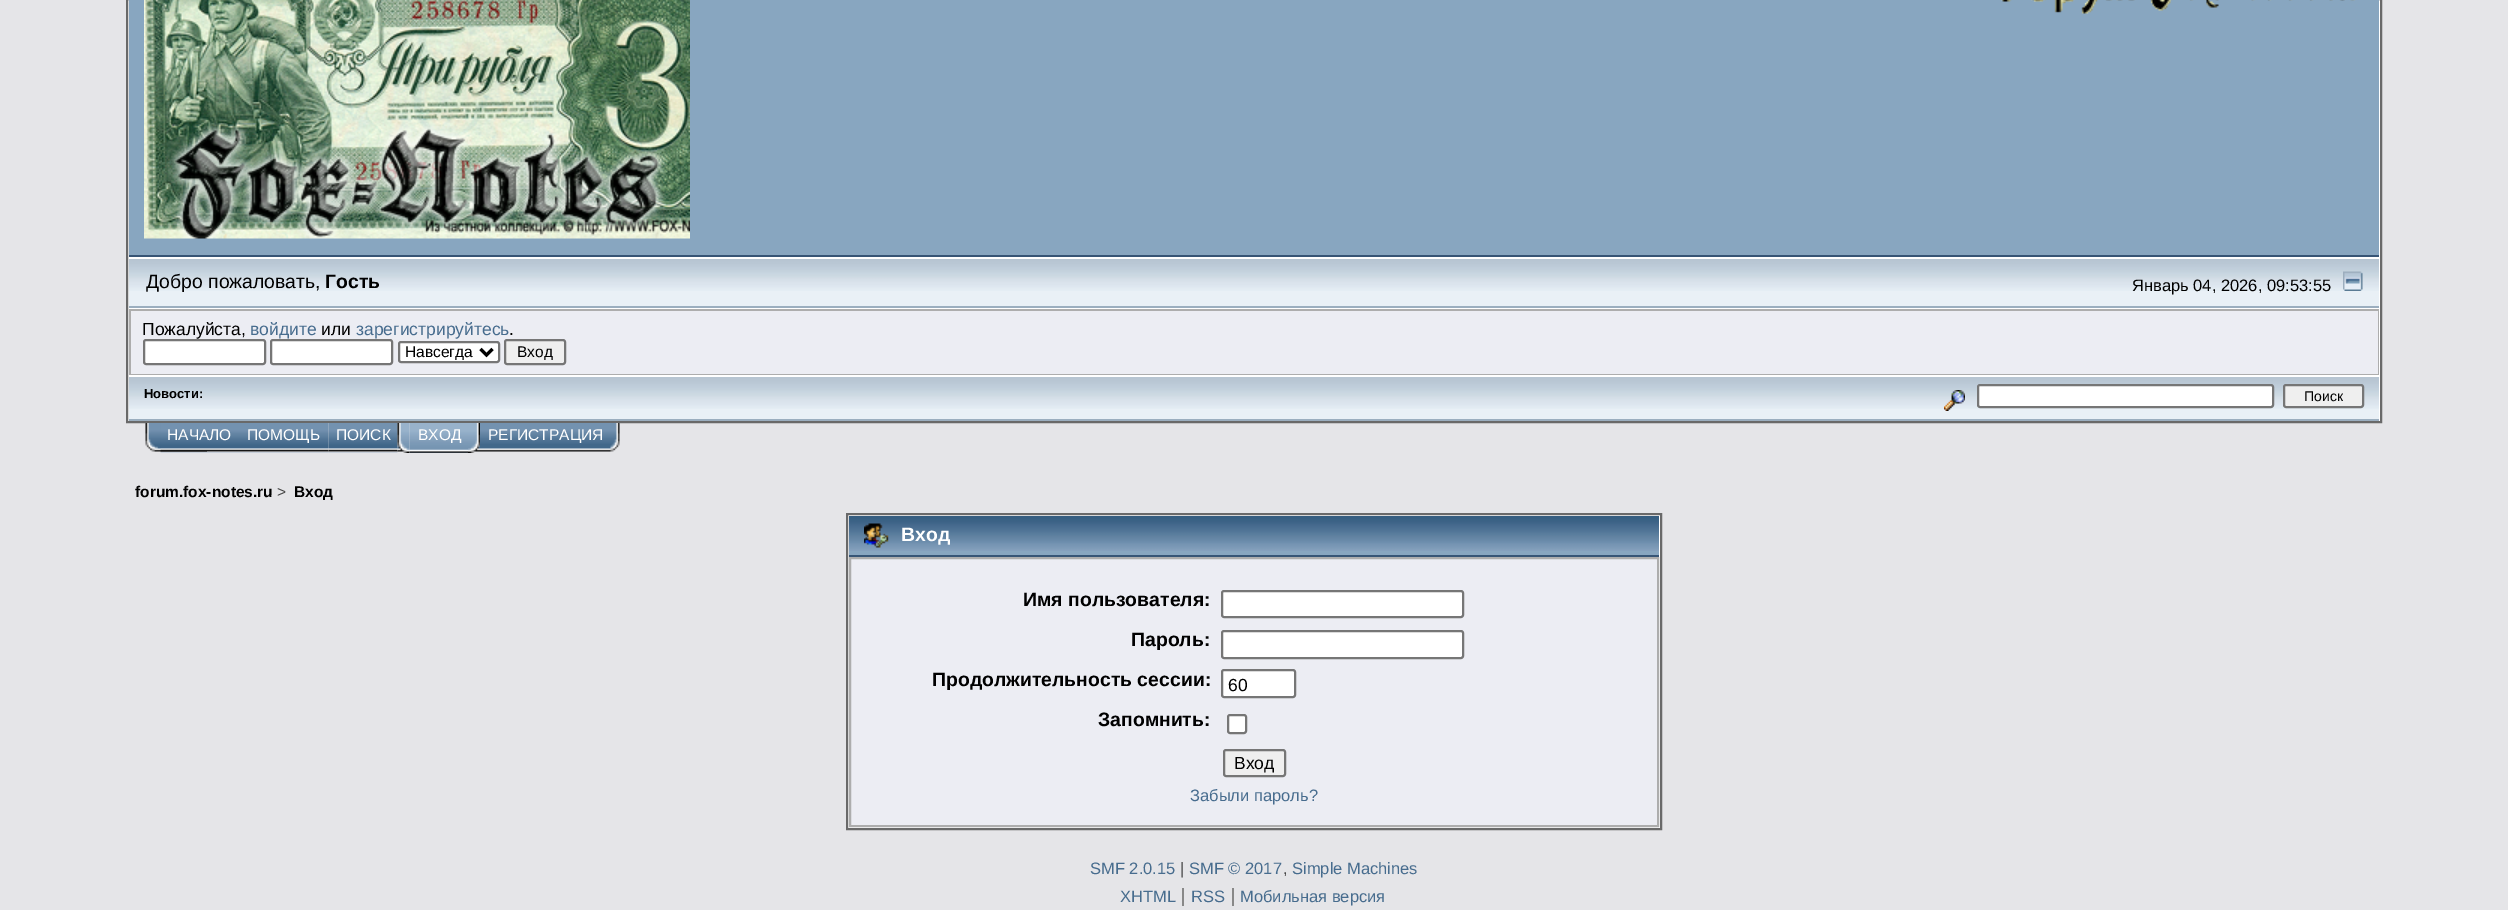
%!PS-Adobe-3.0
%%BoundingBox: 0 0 2508 910
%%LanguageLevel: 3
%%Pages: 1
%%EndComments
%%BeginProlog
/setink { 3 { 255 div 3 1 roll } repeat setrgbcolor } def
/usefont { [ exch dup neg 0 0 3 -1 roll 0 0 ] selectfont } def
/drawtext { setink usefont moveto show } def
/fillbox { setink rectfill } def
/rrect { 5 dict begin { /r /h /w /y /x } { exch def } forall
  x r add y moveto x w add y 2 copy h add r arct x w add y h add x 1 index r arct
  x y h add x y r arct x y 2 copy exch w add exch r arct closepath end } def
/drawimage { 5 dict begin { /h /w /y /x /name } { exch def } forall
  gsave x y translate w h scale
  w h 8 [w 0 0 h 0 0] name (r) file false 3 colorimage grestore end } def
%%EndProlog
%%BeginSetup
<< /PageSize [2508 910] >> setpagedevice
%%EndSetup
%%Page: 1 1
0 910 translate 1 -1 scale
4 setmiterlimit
0 0 2508 910 229 229 232 fillbox
255 255 255 setink
127 -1 moveto 2381 -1 lineto 2381 422 lineto 127 422 lineto closepath gsave fill grestore
105 105 105 setink
2 setlinewidth
stroke
129 0 2250 255 136 166 192 fillbox
129 255 2250 2 55 85 118 fillbox
(assets/img1.rgb) 144 0 546 239 drawimage
(assets/img2.rgb) 2001 0 354 14 drawimage
129 291 2250 15 233 240 246 fillbox
(assets/img3.rgb) 129 259 2250 32 drawimage
129 306 2250 2 155 174 191 fillbox
(Добро пожаловать,) 146 288 /LiberationSans-Regular 19.4 0 0 0 drawtext
(Гость) 325 288 /LiberationSans-Bold 19.4 0 0 0 drawtext
(Январь 04, 2026, 09:53:55) 2132 291 /LiberationSans-Regular 16.5 0 0 0 drawtext
(assets/img4.rgb) 2343 271 20 20 drawimage
129 309 2250 66 173 173 173 fillbox
131 311 2247 63 236 237 243 fillbox
(Пожалуйста,) 142 335 /LiberationSans-Regular 17.5 0 0 0 drawtext
(войдите) 250 335 /LiberationSans-Regular 17.5 71 108 142 drawtext
(или) 321 335 /LiberationSans-Regular 17.5 0 0 0 drawtext
(зарегистрируйтесь) 356 335 /LiberationSans-Regular 17.5 71 108 142 drawtext
(.) 509 335 /LiberationSans-Regular 17.5 0 0 0 drawtext
255 255 255 setink
144 340 121 24 2 rrect gsave fill grestore
118 118 118 setink
stroke
255 255 255 setink
271 340 121 24 2 rrect gsave fill grestore
118 118 118 setink
stroke
255 255 255 setink
399 342 100 20 2 rrect gsave fill grestore
118 118 118 setink
stroke
0 0 0 setink
3 setlinewidth
480.5 349 moveto 486.5 355 lineto 492.5 349 lineto stroke
(Навсегда) 405 357 /LiberationSans-Regular 15.5 0 0 0 drawtext
239 239 239 setink
505 340 60 24 2 rrect gsave fill grestore
118 118 118 setink
2 setlinewidth
stroke
(Вход) 517 357 /LiberationSans-Regular 15.5 0 0 0 drawtext
129 409 2250 10 233 240 246 fillbox
(assets/img5.rgb) 129 377 2250 32 drawimage
129 419 2250 2 155 174 191 fillbox
(Новости:) 144 398 /LiberationSans-Bold 13 0 0 0 drawtext
(assets/img6.rgb) 1944 390 21 21 drawimage
255 255 255 setink
1978 385 295 22 2 rrect gsave fill grestore
118 118 118 setink
stroke
239 239 239 setink
2284 385 79 22 2 rrect gsave fill grestore
118 118 118 setink
stroke
(Поиск) 2304 401 /LiberationSans-Regular 14 0 0 0 drawtext
(assets/img7.rgb) 145 423 62 29 drawimage
(assets/img8.rgb) 160 423 80 30 drawimage
(НАЧАЛО) 167 440 /LiberationSans-Regular 15.5 255 255 255 drawtext
(assets/img9.rgb) 240 423 89 30 drawimage
(ПОМОЩЬ) 247 440 /LiberationSans-Regular 15.5 255 255 255 drawtext
(assets/img10.rgb) 328 423 70 30 drawimage
(ПОИСК) 336 440 /LiberationSans-Regular 15.5 255 255 255 drawtext
(assets/img11.rgb) 468 423 12 30 drawimage
(assets/img12.rgb) 397 423 13 30 drawimage
(assets/img13.rgb) 409 423 59 30 drawimage
(ВХОД) 418 440 /LiberationSans-Regular 15.5 255 255 255 drawtext
(assets/img14.rgb) 480 423 140 29 drawimage
(РЕГИСТРАЦИЯ) 488 440 /LiberationSans-Regular 15.5 255 255 255 drawtext
(forum.fox-notes.ru) 135 497 /LiberationSans-Bold 15.5 0 0 0 drawtext
(>) 277 497 /LiberationSans-Regular 15.5 68 68 68 drawtext
(Вход) 294 497 /LiberationSans-Bold 15.5 0 0 0 drawtext
255 255 255 setink
847 514 moveto 1661 514 lineto 1661 829 lineto 847 829 lineto closepath gsave fill grestore
105 105 105 setink
stroke
849 551 810 4 136 166 192 fillbox
(assets/img15.rgb) 849 516 810 35 drawimage
849 555 810 2 55 85 118 fillbox
(assets/img16.rgb) 864 523 25 25 drawimage
(Вход) 901 541 /LiberationSans-Bold 19.4 255 255 255 drawtext
236 237 243 setink
850 558 moveto 1658 558 lineto 1658 826 lineto 850 826 lineto closepath gsave fill grestore
173 173 173 setink
stroke
(Имя пользователя:) 1023 606 /LiberationSans-Bold 19.4 0 0 0 drawtext
255 255 255 setink
1222 591 241 26 2 rrect gsave fill grestore
118 118 118 setink
stroke
(Пароль:) 1131 646 /LiberationSans-Bold 19.4 0 0 0 drawtext
255 255 255 setink
1222 631 241 27 2 rrect gsave fill grestore
118 118 118 setink
stroke
(Продолжительность сессии:) 932 686 /LiberationSans-Bold 19.4 0 0 0 drawtext
255 255 255 setink
1222 670 73 27 2 rrect gsave fill grestore
118 118 118 setink
stroke
(60) 1228 691 /LiberationSans-Regular 17.5 0 0 0 drawtext
(Запомнить:) 1098 726 /LiberationSans-Bold 19.4 0 0 0 drawtext
255 255 255 setink
1228 715 18 18 2 rrect gsave fill grestore
118 118 118 setink
stroke
239 239 239 setink
1224 750 61 26 2 rrect gsave fill grestore
118 118 118 setink
stroke
(Вход) 1234 769 /LiberationSans-Regular 17.5 0 0 0 drawtext
(Забыли пароль?) 1190 801 /LiberationSans-Regular 16.5 71 108 142 drawtext
(SMF 2.0.15) 1090 874 /LiberationSans-Regular 16.5 71 108 142 drawtext
(|) 1180 874 /LiberationSans-Regular 16.5 68 68 68 drawtext
(SMF © 2017) 1189 874 /LiberationSans-Regular 16.5 71 108 142 drawtext
(,) 1283 874 /LiberationSans-Regular 16.5 68 68 68 drawtext
(Simple Machines) 1292 874 /LiberationSans-Regular 16.5 71 108 142 drawtext
(XHTML) 1120 902 /LiberationSans-Regular 16.5 71 108 142 drawtext
1182 888 2 18 136 136 136 fillbox
(RSS) 1191 902 /LiberationSans-Regular 16.5 71 108 142 drawtext
1232 888 2 18 136 136 136 fillbox
(Мобильная версия) 1240 902 /LiberationSans-Regular 16.5 71 108 142 drawtext
showpage
%%EOF
